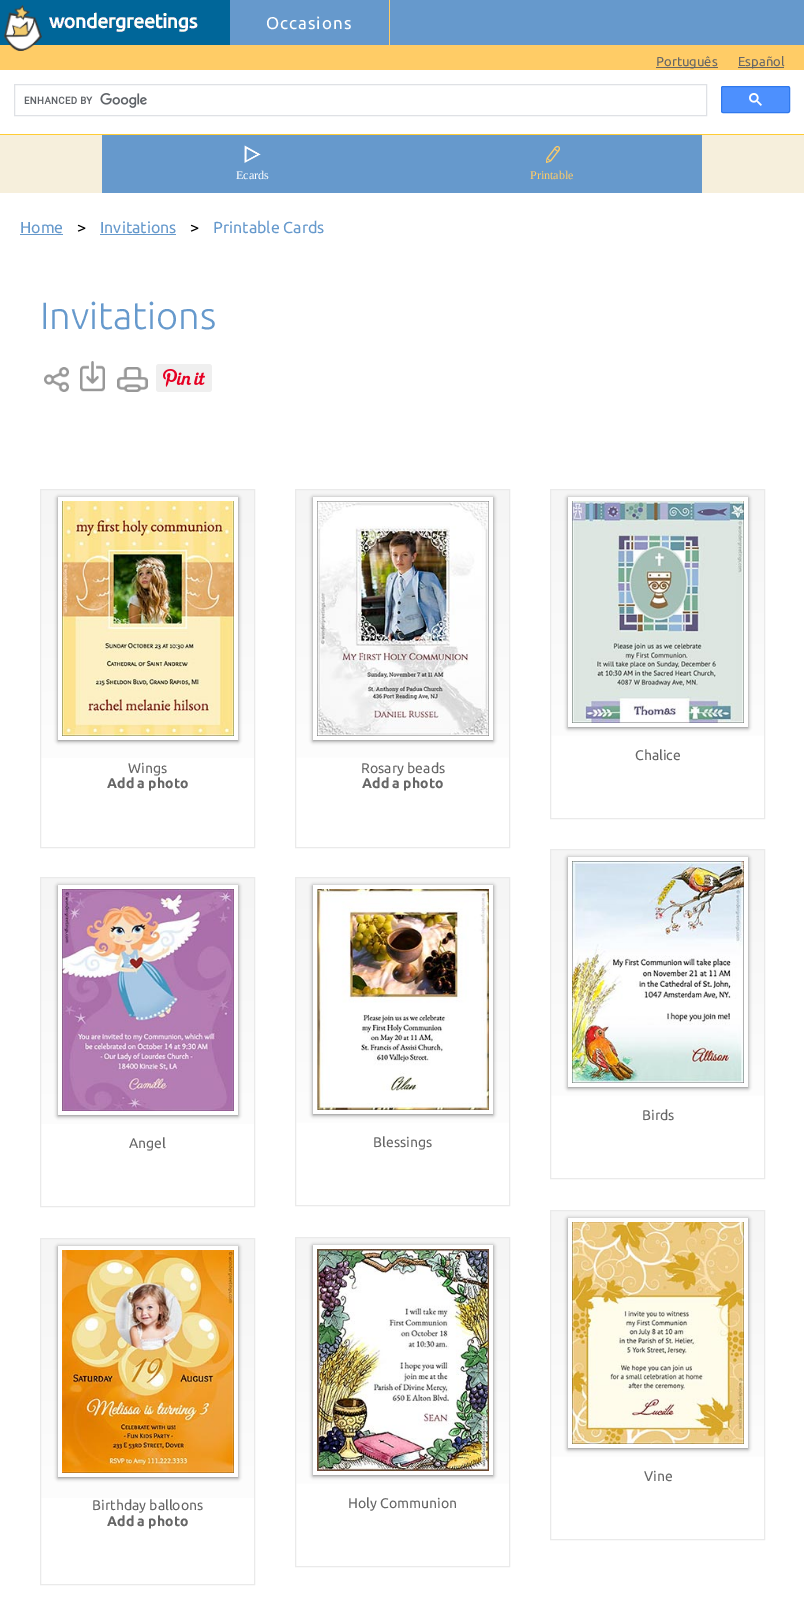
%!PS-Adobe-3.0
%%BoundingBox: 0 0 804 1618
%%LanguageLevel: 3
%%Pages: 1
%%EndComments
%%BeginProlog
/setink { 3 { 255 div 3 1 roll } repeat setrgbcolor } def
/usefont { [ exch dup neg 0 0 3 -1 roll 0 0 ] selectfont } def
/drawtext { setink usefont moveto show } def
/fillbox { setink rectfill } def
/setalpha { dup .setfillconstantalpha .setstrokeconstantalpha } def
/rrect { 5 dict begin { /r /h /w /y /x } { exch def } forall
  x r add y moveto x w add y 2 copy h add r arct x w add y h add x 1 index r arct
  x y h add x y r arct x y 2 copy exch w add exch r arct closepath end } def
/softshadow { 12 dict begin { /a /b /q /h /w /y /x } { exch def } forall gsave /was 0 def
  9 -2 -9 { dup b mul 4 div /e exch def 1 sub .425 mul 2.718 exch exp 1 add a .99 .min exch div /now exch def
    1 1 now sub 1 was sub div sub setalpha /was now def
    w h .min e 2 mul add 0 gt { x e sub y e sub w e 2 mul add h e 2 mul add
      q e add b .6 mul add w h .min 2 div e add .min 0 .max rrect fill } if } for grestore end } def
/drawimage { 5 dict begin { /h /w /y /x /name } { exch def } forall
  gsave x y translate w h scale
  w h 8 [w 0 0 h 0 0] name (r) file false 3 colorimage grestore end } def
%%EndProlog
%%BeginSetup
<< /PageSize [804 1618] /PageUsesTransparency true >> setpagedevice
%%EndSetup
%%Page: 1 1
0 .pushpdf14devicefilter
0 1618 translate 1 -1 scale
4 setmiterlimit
0 0 804 1618 246 239 220 fillbox
230 0 574 45 102 153 204 fillbox
0 0 230 45 0 102 153 fillbox
0 45 804 25 255 204 102 fillbox
(assets/img1.rgb) 4 5 38 46 drawimage
(assets/img2.rgb) 49 12 149 20 drawimage
389 0 1 45 255 204 102 fillbox
/Ubuntu-Regular 17 usefont
255 255 255 setink
266 29 moveto 1 0 (Occasions) ashow
656 67 62 1 102 102 102 fillbox
(Português) 656 66 /Ubuntu-Regular 13 102 102 102 drawtext
738 67 46 1 102 102 102 fillbox
(Español) 738 66 /Ubuntu-Regular 13 102 102 102 drawtext
0 70 804 64 255 255 255 fillbox
223 225 229 setink
14.5 84.5 692 31 rectstroke
(assets/img3.rgb) 24 93 123 15 drawimage
77 144 254 setink
721.5 86.5 68 26 1.5 rrect gsave fill grestore
48 121 237 setink
stroke
(assets/img4.rgb) 749 93 13 13 drawimage
0 134 804 1 255 204 51 fillbox
102 135 600 58 102 153 204 fillbox
(assets/img5.rgb) 244 145 17 18 drawimage
(Ecards) 236 179 /LiberationSerif-Regular 12 255 255 255 drawtext
(assets/img6.rgb) 546 146 14 17 drawimage
(Printable) 530 179 /LiberationSerif-Regular 12 255 204 102 drawtext
0 193 804 1425 255 255 255 fillbox
(Home) 20 233 /Ubuntu-Regular 16 102 153 204 drawtext
20 234 43 1 102 153 204 fillbox
(>) 77 233 /Ubuntu-Regular 16 0 0 0 drawtext
(Invitations) 100 233 /Ubuntu-Regular 16 102 153 204 drawtext
100 234 76 1 102 153 204 fillbox
(>) 190 233 /Ubuntu-Regular 16 0 0 0 drawtext
(Printable Cards) 213 233 /Ubuntu-Regular 16 102 153 204 drawtext
(Invitations) 40 329 /Ubuntu-Light 38 102 153 204 drawtext
(assets/img7.rgb) 44 367 25 25 drawimage
(assets/img8.rgb) 80 361 25 31 drawimage
(assets/img9.rgb) 117 367 31 25 drawimage
239 239 239 setink
156 364 56 28 3 rrect fill
(assets/img10.rgb) 163 369 42 18 drawimage
gsave 551 490 moveto 764 490 lineto 764 736 lineto 551 736 lineto closepath clip newpath
<< /ShadingType 2 /ColorSpace /DeviceRGB /Coords [658 490 658 818] /Extend [true true] /Function << /FunctionType 2 /Domain [0 1] /C0 [0.961 0.961 0.961] /C1 [1 1 1] /N 1 >> >> shfill grestore
234 234 234 setink
550.5 489.5 214 329 rectstroke
0 0 0 setink
568 498 180 230 0 2 0.5 softshadow
568 497 180 230 255 255 255 fillbox
(assets/img11.rgb) 572 501 172 222 drawimage
(Chalice) 635 760 /Ubuntu-Regular 14 102 102 102 drawtext
gsave 41 490 moveto 254 490 lineto 254 758 lineto 41 758 lineto closepath clip newpath
<< /ShadingType 2 /ColorSpace /DeviceRGB /Coords [147 490 148 847] /Extend [true true] /Function << /FunctionType 2 /Domain [0 1] /C0 [0.961 0.961 0.961] /C1 [1 1 1] /N 1 >> >> shfill grestore
234 234 234 setink
40.5 489.5 214 358 rectstroke
0 0 0 setink
58 498 180 243 0 2 0.5 softshadow
58 497 180 243 255 255 255 fillbox
(assets/img12.rgb) 62 501 172 235 drawimage
(Wings) 128 773 /Ubuntu-Regular 14 102 102 102 drawtext
(Add a photo) 107 788 /Ubuntu-Bold 14 102 102 102 drawtext
gsave 296 490 moveto 509 490 lineto 509 758 lineto 296 758 lineto closepath clip newpath
<< /ShadingType 2 /ColorSpace /DeviceRGB /Coords [403 490 403 847] /Extend [true true] /Function << /FunctionType 2 /Domain [0 1] /C0 [0.961 0.961 0.961] /C1 [1 1 1] /N 1 >> >> shfill grestore
234 234 234 setink
295.5 489.5 214 358 rectstroke
0 0 0 setink
313 498 180 243 0 2 0.5 softshadow
313 497 180 243 255 255 255 fillbox
(assets/img13.rgb) 317 501 172 235 drawimage
(Rosary beads) 361 773 /Ubuntu-Regular 14 102 102 102 drawtext
(Add a photo) 362 788 /Ubuntu-Bold 14 102 102 102 drawtext
gsave 551 850 moveto 764 850 lineto 764 1096 lineto 551 1096 lineto closepath clip newpath
<< /ShadingType 2 /ColorSpace /DeviceRGB /Coords [658 850 658 1178] /Extend [true true] /Function << /FunctionType 2 /Domain [0 1] /C0 [0.961 0.961 0.961] /C1 [1 1 1] /N 1 >> >> shfill grestore
234 234 234 setink
550.5 849.5 214 329 rectstroke
0 0 0 setink
568 858 180 230 0 2 0.5 softshadow
568 857 180 230 255 255 255 fillbox
(assets/img14.rgb) 572 861 172 222 drawimage
(Birds) 642 1120 /Ubuntu-Regular 14 102 102 102 drawtext
gsave 41 878 moveto 254 878 lineto 254 1124 lineto 41 1124 lineto closepath clip newpath
<< /ShadingType 2 /ColorSpace /DeviceRGB /Coords [147 878 148 1206] /Extend [true true] /Function << /FunctionType 2 /Domain [0 1] /C0 [0.961 0.961 0.961] /C1 [1 1 1] /N 1 >> >> shfill grestore
234 234 234 setink
40.5 877.5 214 329 rectstroke
0 0 0 setink
58 886 180 230 0 2 0.5 softshadow
58 885 180 230 255 255 255 fillbox
(assets/img15.rgb) 62 889 172 222 drawimage
(Angel) 129 1148 /Ubuntu-Regular 14 102 102 102 drawtext
gsave 296 878 moveto 509 878 lineto 509 1123 lineto 296 1123 lineto closepath clip newpath
<< /ShadingType 2 /ColorSpace /DeviceRGB /Coords [403 878 403 1205] /Extend [true true] /Function << /FunctionType 2 /Domain [0 1] /C0 [0.961 0.961 0.961] /C1 [1 1 1] /N 1 >> >> shfill grestore
234 234 234 setink
295.5 877.5 214 328 rectstroke
0 0 0 setink
313 886 180 229 0 2 0.5 softshadow
313 885 180 229 255 255 255 fillbox
(assets/img16.rgb) 317 889 172 221 drawimage
(Blessings) 373 1147 /Ubuntu-Regular 14 102 102 102 drawtext
gsave 551 1211 moveto 764 1211 lineto 764 1457 lineto 551 1457 lineto closepath clip newpath
<< /ShadingType 2 /ColorSpace /DeviceRGB /Coords [658 1211 658 1539] /Extend [true true] /Function << /FunctionType 2 /Domain [0 1] /C0 [0.961 0.961 0.961] /C1 [1 1 1] /N 1 >> >> shfill grestore
234 234 234 setink
550.5 1210.5 214 329 rectstroke
0 0 0 setink
568 1219 180 230 0 2 0.5 softshadow
568 1218 180 230 255 255 255 fillbox
(assets/img17.rgb) 572 1222 172 222 drawimage
(Vine) 644 1481 /Ubuntu-Regular 14 102 102 102 drawtext
gsave 41 1239 moveto 254 1239 lineto 254 1498 lineto 41 1498 lineto closepath clip newpath
<< /ShadingType 2 /ColorSpace /DeviceRGB /Coords [147 1239 148 1584] /Extend [true true] /Function << /FunctionType 2 /Domain [0 1] /C0 [0.961 0.961 0.961] /C1 [1 1 1] /N 1 >> >> shfill grestore
234 234 234 setink
40.5 1238.5 214 346 rectstroke
0 0 0 setink
58 1247 180 231 0 2 0.5 softshadow
58 1246 180 231 255 255 255 fillbox
(assets/img18.rgb) 62 1250 172 223 drawimage
(Birthday balloons) 92 1510 /Ubuntu-Regular 14 102 102 102 drawtext
(Add a photo) 107 1526 /Ubuntu-Bold 14 102 102 102 drawtext
gsave 296 1238 moveto 509 1238 lineto 509 1484 lineto 296 1484 lineto closepath clip newpath
<< /ShadingType 2 /ColorSpace /DeviceRGB /Coords [403 1238 403 1566] /Extend [true true] /Function << /FunctionType 2 /Domain [0 1] /C0 [0.961 0.961 0.961] /C1 [1 1 1] /N 1 >> >> shfill grestore
234 234 234 setink
295.5 1237.5 214 329 rectstroke
0 0 0 setink
313 1246 180 230 0 2 0.5 softshadow
313 1245 180 230 255 255 255 fillbox
(assets/img19.rgb) 317 1249 172 222 drawimage
(Holy Communion) 348 1508 /Ubuntu-Regular 14 102 102 102 drawtext
.poppdf14devicefilter showpage
%%EOF
